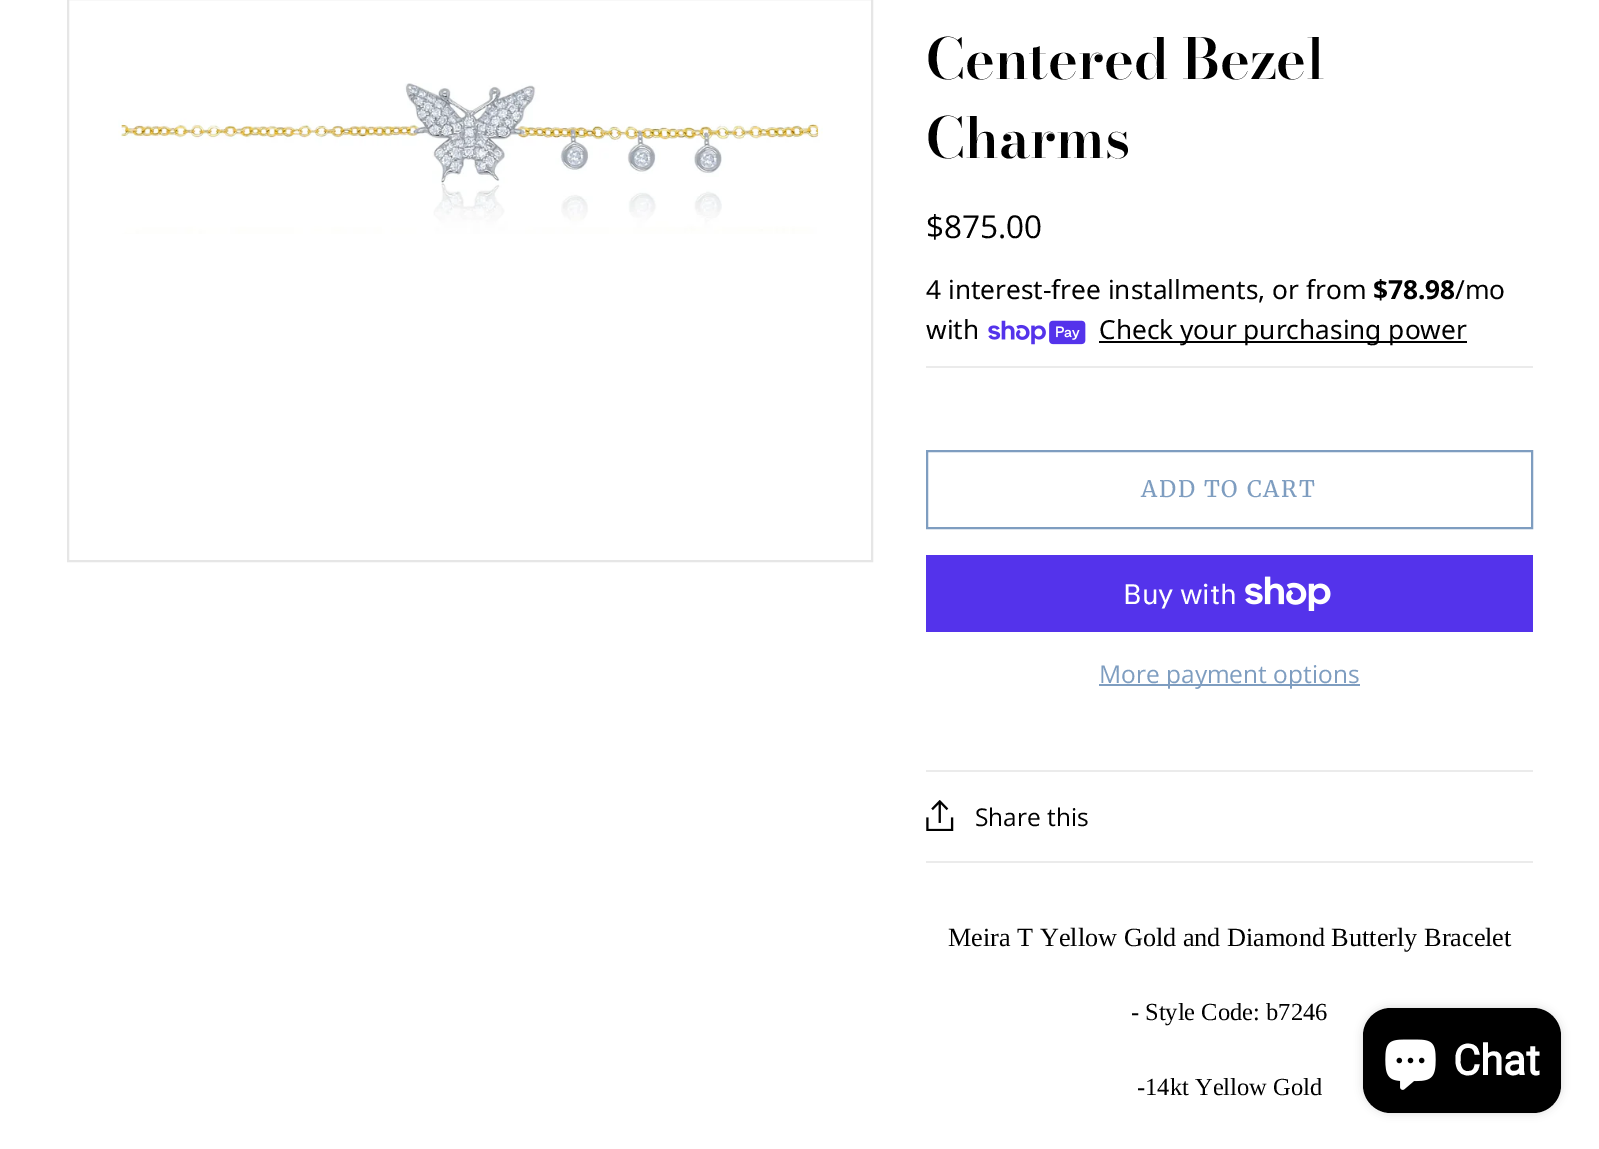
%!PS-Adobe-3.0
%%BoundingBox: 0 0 1599 1149
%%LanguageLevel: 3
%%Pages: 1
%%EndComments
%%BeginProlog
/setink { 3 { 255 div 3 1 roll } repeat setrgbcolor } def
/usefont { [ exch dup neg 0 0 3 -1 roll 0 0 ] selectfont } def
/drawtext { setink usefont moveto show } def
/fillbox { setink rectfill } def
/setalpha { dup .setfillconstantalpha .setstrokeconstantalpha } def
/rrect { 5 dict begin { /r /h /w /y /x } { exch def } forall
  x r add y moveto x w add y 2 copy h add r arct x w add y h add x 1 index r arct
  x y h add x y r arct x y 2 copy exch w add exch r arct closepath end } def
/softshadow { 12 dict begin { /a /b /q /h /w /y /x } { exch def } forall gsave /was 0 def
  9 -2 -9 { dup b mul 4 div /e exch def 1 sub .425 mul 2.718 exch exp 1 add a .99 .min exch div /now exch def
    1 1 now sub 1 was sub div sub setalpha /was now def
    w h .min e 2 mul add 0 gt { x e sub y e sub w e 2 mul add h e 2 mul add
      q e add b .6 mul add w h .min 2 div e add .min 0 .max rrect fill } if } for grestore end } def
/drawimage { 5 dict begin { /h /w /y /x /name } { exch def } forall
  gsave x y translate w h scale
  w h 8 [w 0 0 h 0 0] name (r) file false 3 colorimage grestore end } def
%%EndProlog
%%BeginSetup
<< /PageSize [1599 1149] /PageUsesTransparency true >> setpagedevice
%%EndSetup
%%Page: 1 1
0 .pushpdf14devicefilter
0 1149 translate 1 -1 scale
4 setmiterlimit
0 0 1599 1149 255 255 255 fillbox
(assets/img1.rgb) 118 83 705 151 drawimage
230 230 230 setink
2 setlinewidth
68 -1 804 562 rectstroke
(Centered Bezel) 926 79 /BodoniModa-SemiBold 56 0 0 0 drawtext
(Charms) 926 158 /BodoniModa-SemiBold 56 0 0 0 drawtext
926 366 607 2 235 235 235 fillbox
($875.00) 926 238 /OpenSans-Regular 31.5 0 0 0 drawtext
(4 interest-free installments, or from) 926 299 /NotoSans-Regular 26.25 0 0 0 drawtext
($78.98) 1373 299 /NotoSans-Bold 26.25 0 0 0 drawtext
(/mo) 1455 299 /NotoSans-Regular 26.25 0 0 0 drawtext
(with) 926 339 /NotoSans-Regular 26.25 0 0 0 drawtext
(assets/img2.rgb) 988 320 98 25 drawimage
1099 341 368 2 0 0 0 fillbox
(Check your purchasing power) 1099 339 /NotoSans-Regular 26.25 0 0 0 drawtext
926 770 607 2 235 235 235 fillbox
126 157 192 setink
927 451 605 77 rectstroke
/Merriweather-Regular 22.75 usefont
1141 497 moveto 1.75 0 (ADD TO CART) ashow
926 555 607 77 84 51 235 fillbox
(Buy with) 1123 604 /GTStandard-Regular 28 255 255 255 drawtext
(assets/img3.rgb) 1245 576 86 35 drawimage
1099 684 261 2 126 157 192 fillbox
(More payment options) 1099 683 /OpenSans-Regular 24.5 126 157 192 drawtext
926 861 607 2 235 235 235 fillbox
(assets/img4.rgb) 926 800 28 31 drawimage
(Share this) 975 826 /OpenSans-Regular 24.5 0 0 0 drawtext
(Meira T Yellow Gold and Diamond Butterly Bracelet) 948 946 /LiberationSerif-Regular 26.25 0 0 0 drawtext
(-) 1131 1020 /LiberationSerif-Bold 24.5 0 0 0 drawtext
(Style Code: b7246) 1145 1020 /LiberationSerif-Regular 24.5 0 0 0 drawtext
(-14kt Yellow Gold) 1137 1095 /LiberationSerif-Regular 24.5 0 0 0 drawtext
1363 1008 198 105 28 4.5 0.15 softshadow
1363 1008 198 105 28 rrect fill
(assets/img5.rgb) 1385 1039 51 51 drawimage
(Chat) 1453 1075 /Roboto-Bold 42 255 255 255 drawtext
.poppdf14devicefilter showpage
%%EOF
